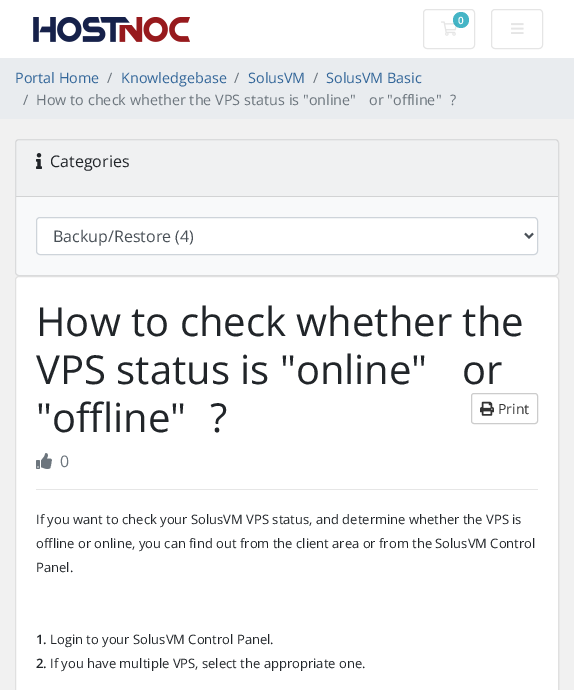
%!PS-Adobe-3.0
%%BoundingBox: 0 0 574 690
%%LanguageLevel: 3
%%Pages: 1
%%EndComments
%%BeginProlog
/setink { 3 { 255 div 3 1 roll } repeat setrgbcolor } def
/usefont { [ exch dup neg 0 0 3 -1 roll 0 0 ] selectfont } def
/drawtext { setink usefont moveto show } def
/fillbox { setink rectfill } def
/setalpha { dup .setfillconstantalpha .setstrokeconstantalpha } def
/disc { newpath 0 360 arc closepath } def
/rrect { 5 dict begin { /r /h /w /y /x } { exch def } forall
  x r add y moveto x w add y 2 copy h add r arct x w add y h add x 1 index r arct
  x y h add x y r arct x y 2 copy exch w add exch r arct closepath end } def
/drawimage { 5 dict begin { /h /w /y /x /name } { exch def } forall
  gsave x y translate w h scale
  w h 8 [w 0 0 h 0 0] name (r) file false 3 colorimage grestore end } def
%%EndProlog
%%BeginSetup
<< /PageSize [574 690] /PageUsesTransparency true >> setpagedevice
%%EndSetup
%%Page: 1 1
0 .pushpdf14devicefilter
0 690 translate 1 -1 scale
4 setmiterlimit
0 0 574 690 241 241 241 fillbox
0 0 574 58 255 255 255 fillbox
(assets/img1.rgb) 33 17 157 25 drawimage
229 229 229 setink
423.5 9.5 51 39 3.5 rrect stroke
(assets/img2.rgb) 441 21 16 15 drawimage
0.8 setalpha
23 162 184 setink
461 20 8 disc fill
1 setalpha
(0) 458 24 /OpenSans-SemiBold 10 255 255 255 drawtext
229 229 229 setink
491.5 9.5 51 39 3.5 rrect stroke
(assets/img3.rgb) 511 23 13 11 drawimage
0 58 574 61 233 236 239 fillbox
(Portal Home) 15 83 /OpenSans-Regular 14.4 51 102 153 drawtext
(/) 107 83 /OpenSans-Regular 14.4 108 117 125 drawtext
(Knowledgebase) 121 83 /OpenSans-Regular 14.4 51 102 153 drawtext
(/) 234 83 /OpenSans-Regular 14.4 108 117 125 drawtext
(SolusVM) 248 83 /OpenSans-Regular 14.4 51 102 153 drawtext
(/) 313 83 /OpenSans-Regular 14.4 108 117 125 drawtext
(SolusVM Basic) 326 83 /OpenSans-Regular 14.4 51 102 153 drawtext
(/) 23 105 /OpenSans-Regular 14.4 108 117 125 drawtext
(How to check whether the VPS status is "online") 36 105 /OpenSans-Regular 14.4 108 117 125 drawtext
(or "offline") 369 105 /OpenSans-Regular 14.4 108 117 125 drawtext
(?) 450 105 /OpenSans-Regular 14.4 108 117 125 drawtext
248 249 250 setink
15 139 544 137 4 rrect fill
0.12 setalpha
0 0 0 setink
15.5 139.5 543 136 3.5 rrect stroke
0.03 setalpha
16 140 542 56 0 0 0 fillbox
1 setalpha
16 196 542 1 210 211 212 fillbox
(assets/img4.rgb) 36 153 6 16 drawimage
(Categories) 50 167 /OpenSans-Regular 16 33 37 41 drawtext
255 255 255 setink
36.5 217.5 501 37 3.5 rrect gsave fill grestore
206 212 218 setink
stroke
73 80 87 setink
2 setlinewidth
525 233.5 moveto 529 237.5 lineto 533 233.5 lineto stroke
(Backup/Restore \(4\)) 53 242 /OpenSans-Regular 16 73 80 87 drawtext
255 255 255 setink
15 276 544 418 4 rrect fill
0.12 setalpha
0 0 0 setink
1 setlinewidth
15.5 276.5 543 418 3.5 rrect stroke
1 setalpha
(How to check whether the) 36 336 /OpenSans-Regular 40 33 37 41 drawtext
(VPS status is "online") 36 384 /OpenSans-Regular 40 33 37 41 drawtext
(or) 462 384 /OpenSans-Regular 40 33 37 41 drawtext
("offline") 36 432 /OpenSans-Regular 40 33 37 41 drawtext
(?) 210 432 /OpenSans-Regular 40 33 37 41 drawtext
204 204 204 setink
471.5 393.5 66 30 2.5 rrect stroke
(assets/img5.rgb) 480 401 14 15 drawimage
(Print) 498 414 /OpenSans-Regular 14 51 51 51 drawtext
(assets/img6.rgb) 36 453 16 16 drawimage
(0) 60 467 /OpenSans-Regular 16 108 117 125 drawtext
36 489 502 1 230 230 230 fillbox
(If you want to check your SolusVM VPS status, and determine whether the VPS is) 36 524 /OpenSans-Regular 13 33 37 41 drawtext
(offline or online, you can find out from the client area or from the SolusVM Control) 36 548 /OpenSans-Regular 13 33 37 41 drawtext
(Panel.) 36 572 /OpenSans-Regular 13 33 37 41 drawtext
(1.) 36 644 /OpenSans-SemiBold 13 33 37 41 drawtext
(Login to your SolusVM Control Panel.) 50 644 /OpenSans-Regular 13 33 37 41 drawtext
(2.) 36 668 /OpenSans-SemiBold 13 33 37 41 drawtext
(If you have multiple VPS, select the appropriate one.) 50 668 /OpenSans-Regular 13 33 37 41 drawtext
.poppdf14devicefilter showpage
%%EOF
